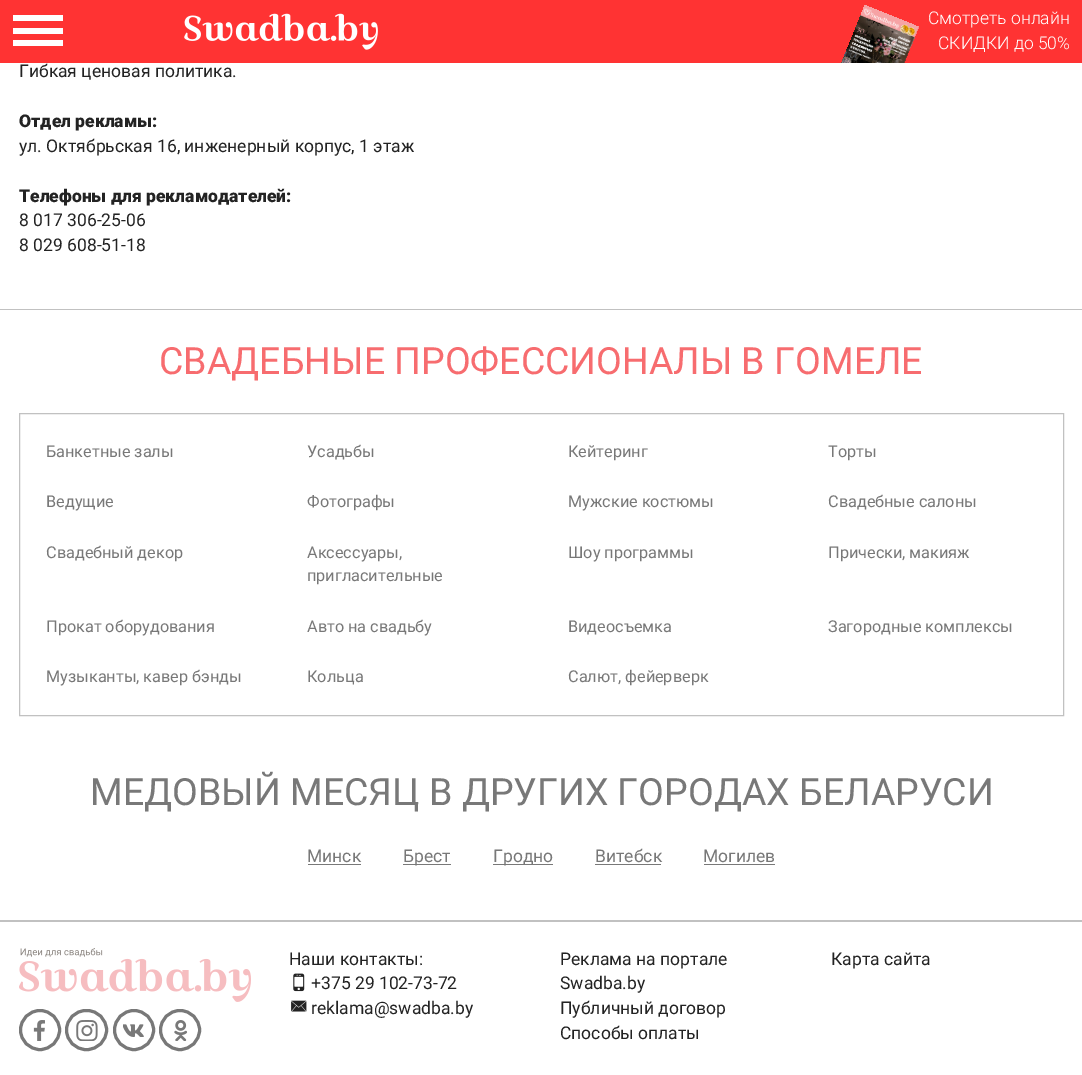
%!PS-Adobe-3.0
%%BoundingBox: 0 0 1082 1075
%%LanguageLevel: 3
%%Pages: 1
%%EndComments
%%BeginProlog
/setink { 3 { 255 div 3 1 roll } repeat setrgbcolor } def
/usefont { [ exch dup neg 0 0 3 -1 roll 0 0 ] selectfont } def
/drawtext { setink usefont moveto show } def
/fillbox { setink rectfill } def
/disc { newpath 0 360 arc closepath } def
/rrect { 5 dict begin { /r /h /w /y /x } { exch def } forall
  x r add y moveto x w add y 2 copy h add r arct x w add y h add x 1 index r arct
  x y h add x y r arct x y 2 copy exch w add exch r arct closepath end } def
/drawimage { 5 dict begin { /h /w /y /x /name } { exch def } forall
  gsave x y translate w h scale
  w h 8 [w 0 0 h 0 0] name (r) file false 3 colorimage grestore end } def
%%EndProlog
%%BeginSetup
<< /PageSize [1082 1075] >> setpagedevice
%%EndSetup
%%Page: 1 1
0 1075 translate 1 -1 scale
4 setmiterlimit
0 0 1082 1075 255 255 255 fillbox
0 0 1082 63 255 51 51 fillbox
13 15 50 6 255 255 255 fillbox
13 28 50 6 255 255 255 fillbox
13 40 50 6 255 255 255 fillbox
(assets/img1.rgb) 184 13 194 37 drawimage
(assets/img2.rgb) 841 5 78 58 drawimage
(Смотреть онлайн) 928 24 /Roboto-Light 17.5 255 255 255 drawtext
(СКИДКИ до 50%) 938 49 /Roboto-Light 17.5 255 255 255 drawtext
0 920 1082 2 193 193 193 fillbox
0 309 1082 1 193 193 193 fillbox
(Гибкая ценовая политика.) 19 77 /Roboto-Regular 17.5 35 35 35 drawtext
(Отдел рекламы:) 19 127 /Roboto-Black 17.5 35 35 35 drawtext
(ул. Октябрьская 16, инженерный корпус, 1 этаж) 19 152 /Roboto-Regular 17.5 35 35 35 drawtext
(Телефоны для рекламодателей:) 19 202 /Roboto-Black 17.5 35 35 35 drawtext
(8 017 306-25-06) 19 226 /Roboto-Regular 17.5 35 35 35 drawtext
(8 029 608-51-18) 19 251 /Roboto-Regular 17.5 35 35 35 drawtext
(СВАДЕБНЫЕ ПРОФЕССИОНАЛЫ В ГОМЕЛЕ) 159 374 /Roboto-Regular 37.5 247 108 111 drawtext
193 193 193 setink
19.5 413.5 1044 302 rectstroke
(Банкетные залы) 46 457 /Roboto-Regular 16.25 120 120 120 drawtext
(Усадьбы) 307 457 /Roboto-Regular 16.25 120 120 120 drawtext
(Кейтеринг) 568 457 /Roboto-Regular 16.25 120 120 120 drawtext
(Торты) 828 457 /Roboto-Regular 16.25 120 120 120 drawtext
(Ведущие) 46 507 /Roboto-Regular 16.25 120 120 120 drawtext
(Фотографы) 307 507 /Roboto-Regular 16.25 120 120 120 drawtext
(Мужские костюмы) 568 507 /Roboto-Regular 16.25 120 120 120 drawtext
(Свадебные салоны) 828 507 /Roboto-Regular 16.25 120 120 120 drawtext
(Свадебный декор) 46 558 /Roboto-Regular 16.25 120 120 120 drawtext
(Аксессуары,) 307 558 /Roboto-Regular 16.25 120 120 120 drawtext
(пригласительные) 307 581 /Roboto-Regular 16.25 120 120 120 drawtext
(Шоу программы) 568 558 /Roboto-Regular 16.25 120 120 120 drawtext
(Прически, макияж) 828 558 /Roboto-Regular 16.25 120 120 120 drawtext
(Прокат оборудования) 46 632 /Roboto-Regular 16.25 120 120 120 drawtext
(Авто на свадьбу) 307 632 /Roboto-Regular 16.25 120 120 120 drawtext
(Видеосъемка) 568 632 /Roboto-Regular 16.25 120 120 120 drawtext
(Загородные комплексы) 828 632 /Roboto-Regular 16.25 120 120 120 drawtext
(Музыканты, кавер бэнды) 46 682 /Roboto-Regular 16.25 120 120 120 drawtext
(Кольца) 307 682 /Roboto-Regular 16.25 120 120 120 drawtext
(Салют, фейерверк) 568 682 /Roboto-Regular 16.25 120 120 120 drawtext
(МЕДОВЫЙ МЕСЯЦ В ДРУГИХ ГОРОДАХ БЕЛАРУСИ) 90 805 /Roboto-Regular 37.5 120 120 120 drawtext
(Минск) 307 862 /Roboto-Regular 17.5 120 120 120 drawtext
308 864 53 1 120 120 120 fillbox
403 864 48 1 120 120 120 fillbox
(Брест) 403 862 /Roboto-Regular 17.5 120 120 120 drawtext
493 864 60 1 120 120 120 fillbox
(Гродно) 493 862 /Roboto-Regular 17.5 120 120 120 drawtext
(Витебск) 595 862 /Roboto-Regular 17.5 120 120 120 drawtext
595 864 66 1 120 120 120 fillbox
(Могилев) 703 862 /Roboto-Regular 17.5 120 120 120 drawtext
704 864 71 1 120 120 120 fillbox
(assets/img3.rgb) 19 948 232 54 drawimage
3 setlinewidth
40 1030 19.5 disc stroke
(assets/img4.rgb) 33 1020 12 21 drawimage
66.5 1010.5 40 39 19.5 rrect stroke
(assets/img5.rgb) 76 1020 22 21 drawimage
134 1030 19.5 disc stroke
(assets/img6.rgb) 123 1024 21 13 drawimage
180 1030 19.5 disc stroke
(assets/img7.rgb) 174 1020 14 21 drawimage
(Наши контакты:) 289 965 /Roboto-Regular 17.5 35 35 35 drawtext
(assets/img8.rgb) 293 973 12 19 drawimage
(+375 29 102-73-72) 311 989 /Roboto-Regular 17.5 35 35 35 drawtext
(assets/img9.rgb) 291 1000 16 12 drawimage
(reklama@swadba.by) 311 1014 /Roboto-Regular 17.5 35 35 35 drawtext
(Реклама на портале) 560 965 /Roboto-Regular 17.5 35 35 35 drawtext
(Swadba.by) 560 989 /Roboto-Regular 17.5 35 35 35 drawtext
(Публичный договор) 560 1014 /Roboto-Regular 17.5 35 35 35 drawtext
(Способы оплаты) 560 1039 /Roboto-Regular 17.5 35 35 35 drawtext
(Карта сайта) 831 965 /Roboto-Regular 17.5 35 35 35 drawtext
showpage
%%EOF
